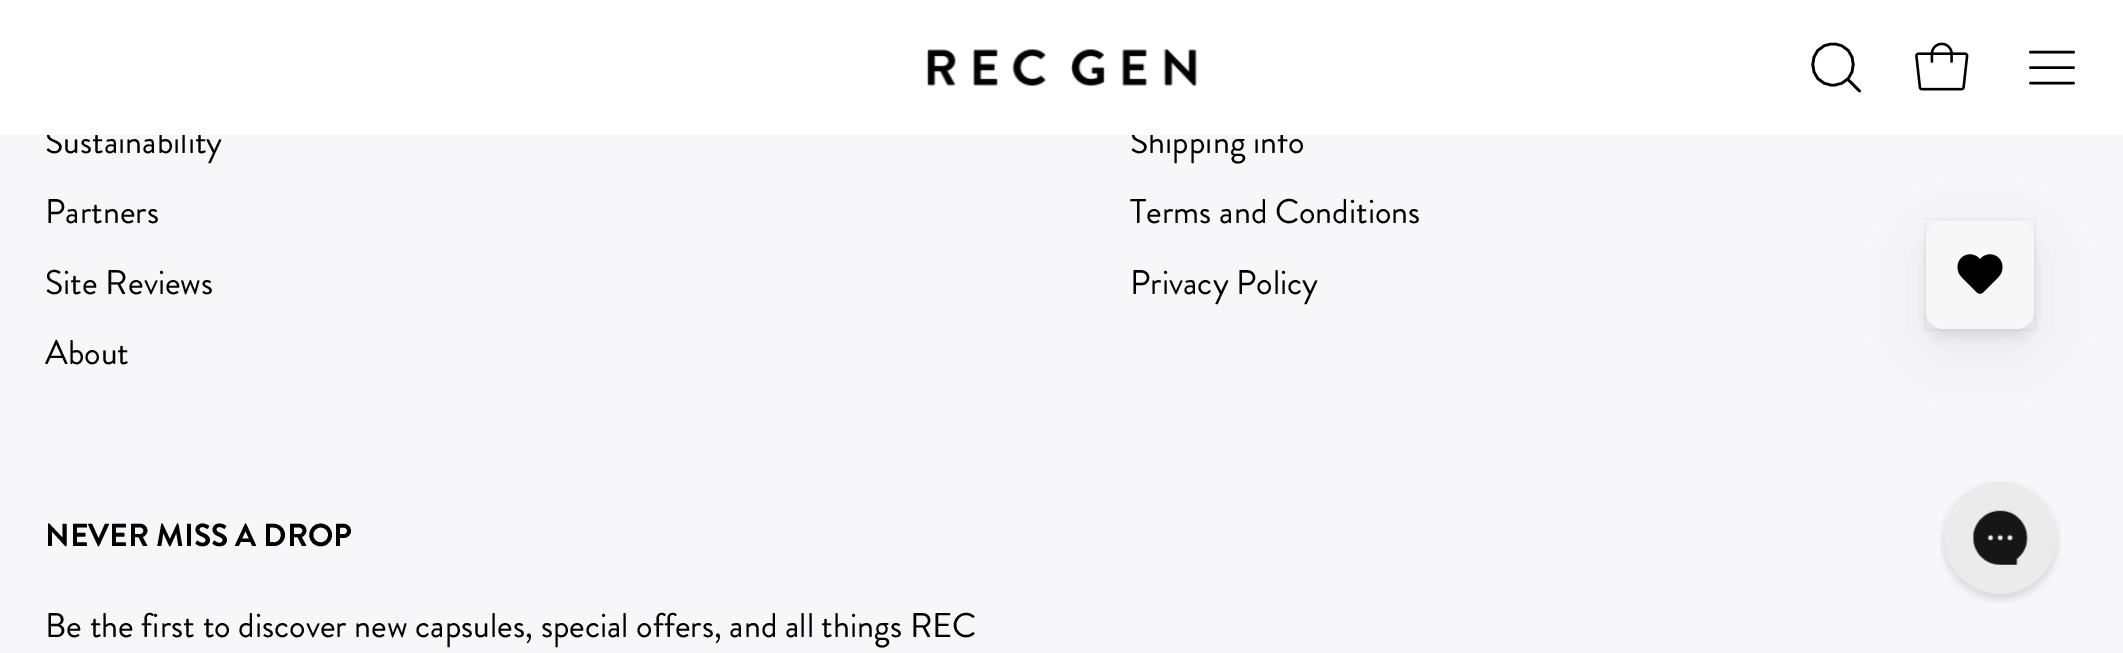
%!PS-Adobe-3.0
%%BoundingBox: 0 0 2123 653
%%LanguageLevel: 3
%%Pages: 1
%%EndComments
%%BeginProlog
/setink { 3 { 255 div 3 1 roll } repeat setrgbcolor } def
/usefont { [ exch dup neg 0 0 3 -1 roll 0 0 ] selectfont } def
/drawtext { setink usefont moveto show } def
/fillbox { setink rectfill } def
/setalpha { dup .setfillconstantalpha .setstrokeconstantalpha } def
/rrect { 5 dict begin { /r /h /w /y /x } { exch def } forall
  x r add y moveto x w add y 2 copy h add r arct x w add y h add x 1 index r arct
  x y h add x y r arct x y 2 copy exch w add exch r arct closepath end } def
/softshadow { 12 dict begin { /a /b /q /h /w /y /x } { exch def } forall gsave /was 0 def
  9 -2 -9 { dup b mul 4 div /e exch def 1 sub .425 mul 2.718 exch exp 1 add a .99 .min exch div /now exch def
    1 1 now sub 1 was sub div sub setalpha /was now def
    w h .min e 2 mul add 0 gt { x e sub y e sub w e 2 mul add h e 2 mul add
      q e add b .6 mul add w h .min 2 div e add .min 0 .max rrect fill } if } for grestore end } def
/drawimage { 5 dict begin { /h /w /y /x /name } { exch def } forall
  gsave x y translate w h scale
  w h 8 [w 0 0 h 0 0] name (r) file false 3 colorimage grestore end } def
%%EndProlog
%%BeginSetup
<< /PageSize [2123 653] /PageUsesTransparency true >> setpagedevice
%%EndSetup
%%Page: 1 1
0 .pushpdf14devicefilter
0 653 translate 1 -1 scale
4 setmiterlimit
0 0 2123 653 247 247 249 fillbox
(Sustainability) 45 153 /BrandonGrotesque-Regular 34.2 0 0 0 drawtext
(Shipping info) 1130 153 /BrandonGrotesque-Regular 34.2 0 0 0 drawtext
0 0 2123 135 255 255 255 fillbox
(assets/img1.rgb) 927 49 270 38 drawimage
0 0 0 setink
2.6 setlinewidth
1 setlinecap
1 setlinejoin
1833 85 moveto 1860 85 1860 44 1833 44 curveto 1806 44 1806 85 1833 85 curveto closepath 1847.5 79 moveto 1859.5 91 lineto stroke
(assets/img2.rgb) 1915 42 54 49 drawimage
2030.5 67.5 moveto 2073.5 67.5 lineto 2030.5 52 moveto 2073.5 52 lineto 2030.5 83 moveto 2073.5 83 lineto stroke
(Partners) 45 223 /BrandonGrotesque-Regular 34.2 0 0 0 drawtext
(Site Reviews) 45 294 /BrandonGrotesque-Regular 34.2 0 0 0 drawtext
(About) 45 364 /BrandonGrotesque-Regular 34.2 0 0 0 drawtext
(Terms and Conditions) 1130 223 /BrandonGrotesque-Regular 34.2 0 0 0 drawtext
(Privacy Policy) 1130 294 /BrandonGrotesque-Regular 34.2 0 0 0 drawtext
(NEVER MISS A DROP) 45 546 /BrandonGrotesque-Bold 31.75 0 0 0 drawtext
(Be the first to discover new capsules, special offers, and all things REC) 45 637 /BrandonGrotesque-Regular 34.2 0 0 0 drawtext
55 63 71 setink
1926 239 108 108 18 27 0.08 softshadow
1926 230 108 108 18 4.5 0.08 softshadow
0.04 setalpha
2 setlinewidth
0 setlinecap
0 setlinejoin
1925 219 110 111 rectstroke
1 setalpha
247 247 247 setink
1926 221 108 108 18 rrect fill
(assets/img3.rgb) 1957 254 46 40 drawimage
(assets/img4.rgb) 1940 481 121 122 drawimage
.poppdf14devicefilter showpage
%%EOF
